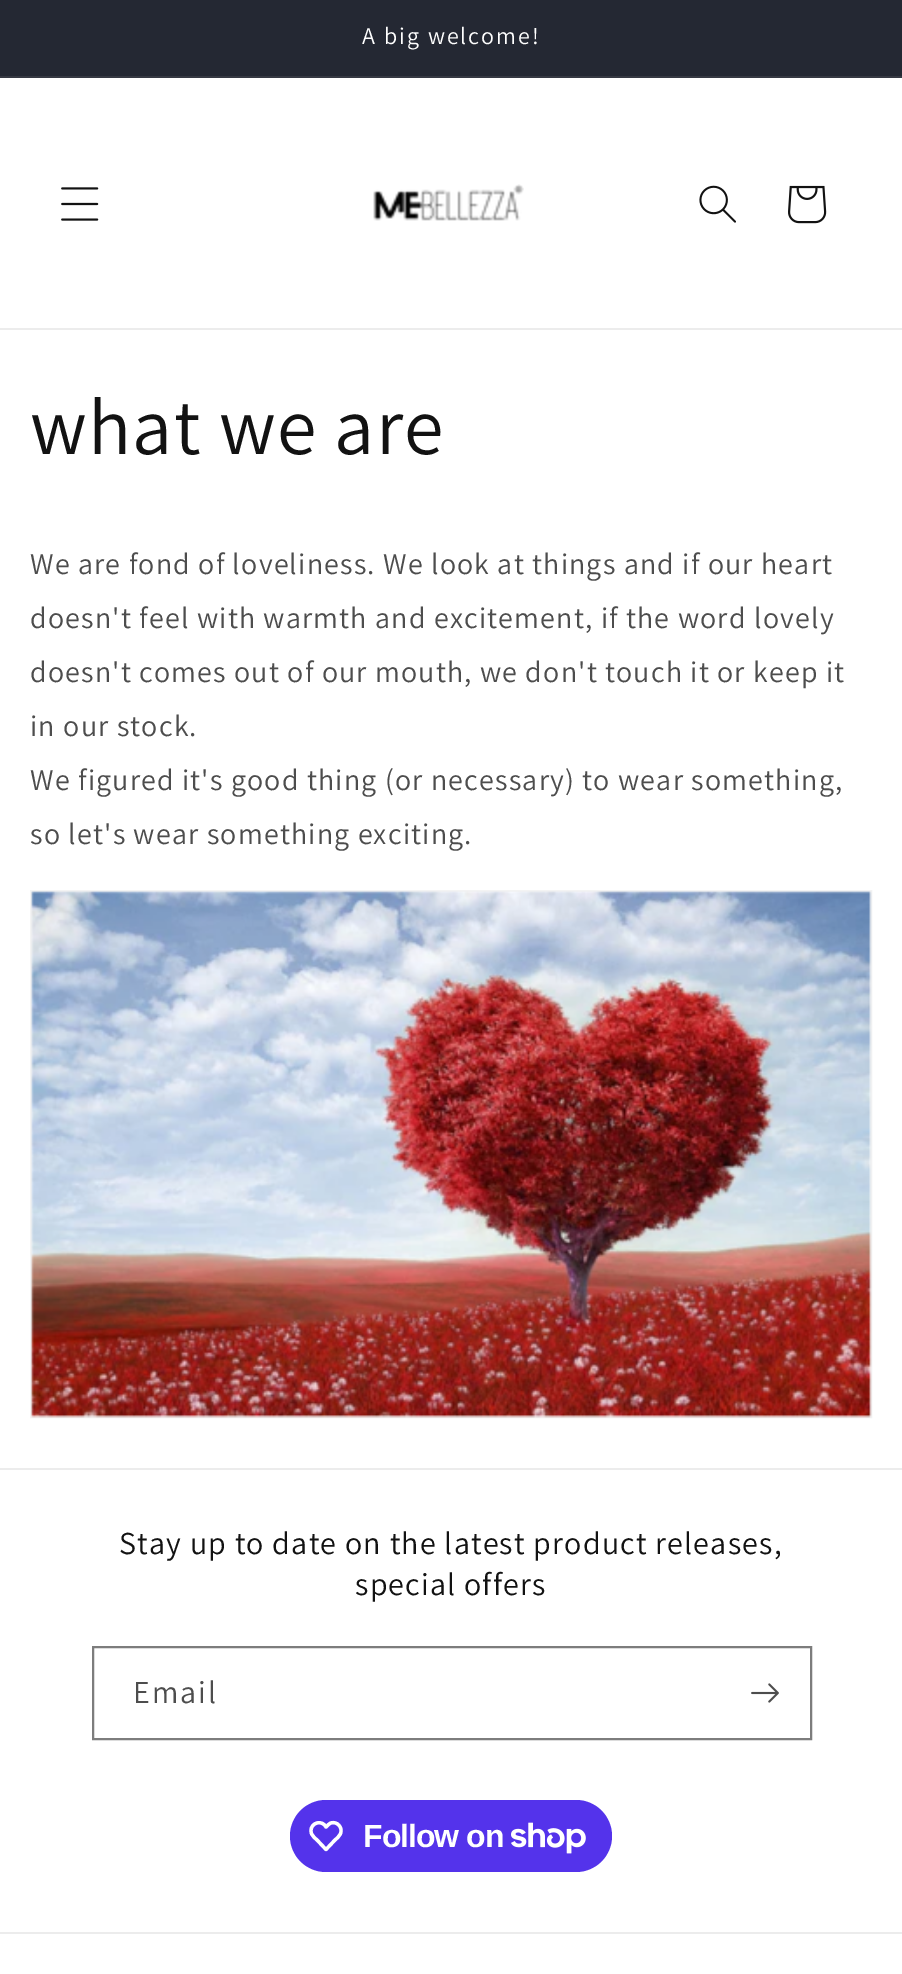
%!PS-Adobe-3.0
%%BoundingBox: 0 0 902 1974
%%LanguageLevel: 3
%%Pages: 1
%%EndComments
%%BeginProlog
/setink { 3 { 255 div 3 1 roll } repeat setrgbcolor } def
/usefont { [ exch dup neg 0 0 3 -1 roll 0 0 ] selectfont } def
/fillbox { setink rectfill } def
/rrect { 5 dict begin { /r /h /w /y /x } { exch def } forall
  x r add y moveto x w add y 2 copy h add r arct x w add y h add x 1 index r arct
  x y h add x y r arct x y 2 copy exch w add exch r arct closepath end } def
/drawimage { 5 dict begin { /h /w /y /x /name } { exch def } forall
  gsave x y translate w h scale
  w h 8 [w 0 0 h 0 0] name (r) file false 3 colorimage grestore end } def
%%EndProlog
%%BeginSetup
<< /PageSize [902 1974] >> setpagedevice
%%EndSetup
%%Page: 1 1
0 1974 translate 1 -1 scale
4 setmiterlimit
0 0 902 1974 255 255 255 fillbox
0 0 902 76 36 40 51 fillbox
0 76 902 2 54 57 67 fillbox
/Assistant-Regular 24 usefont
255 255 255 setink
362 44 moveto 2 0 (A big welcome!) ashow
0 328 902 2 236 236 236 fillbox
(assets/img1.rgb) 61 187 38 34 drawimage
(assets/img2.rgb) 373 184 151 37 drawimage
(assets/img3.rgb) 699 185 37 38 drawimage
(assets/img4.rgb) 788 185 39 39 drawimage
/Assistant-Regular 80 usefont
18 18 18 setink
30 454 moveto 1.2 0 (what we are) ashow
/Assistant-Regular 30 usefont
77 77 77 setink
30 574 moveto 1.2 0 (We are fond of loveliness. We look at things and if our heart) ashow
30 628 moveto 1.2 0 (doesn't feel with warmth and excitement, if the word lovely) ashow
30 682 moveto 1.2 0 (doesn't comes out of our mouth, we don't touch it or keep it) ashow
30 736 moveto 1.2 0 (in our stock.) ashow
30 790 moveto 1.2 0 (We figured it's good thing \(or necessary\) to wear something,) ashow
30 844 moveto 1.2 0 (so let's wear something exciting.) ashow
243 243 243 setink
2 setlinewidth
31 891 840 526 rectstroke
(assets/img5.rgb) 31 891 841 527 drawimage
0 1468 902 2 236 236 236 fillbox
/Assistant-Regular 32 usefont
18 18 18 setink
119 1554 moveto 1.2 0 (Stay up to date on the latest product releases,) ashow
355 1595 moveto 1.2 0 (special offers) ashow
125 125 125 setink
93 1647 718 92 rectstroke
77 77 77 setink
133 1703 moveto 2 0 (Email) ashow
(assets/img6.rgb) 751 1683 28 20 drawimage
84 51 235 setink
290 1800 322 72 36 rrect fill
255 255 255 setink
3.3 setlinewidth
1 setlinejoin
324.5 1825 moveto 326 1827 lineto 327.5 1825.5 329 1823.5 331 1823 curveto 337 1821 343 1827.5 340.5 1833.5 curveto 339.5 1836.5 336.5 1838.5 334.5 1840.5 curveto 326 1849.5 lineto 317.5 1840.5 lineto 315.5 1838.5 312.5 1836.5 311.5 1833.5 curveto 308.5 1825.5 318.5 1819 324.5 1825 curveto closepath stroke
/LiberationSans-Bold 32 usefont
363 1847 moveto -1 0 (Follow on) ashow
(assets/img7.rgb) 511 1822 75 32 drawimage
0 1932 902 2 236 236 236 fillbox
showpage
%%EOF
